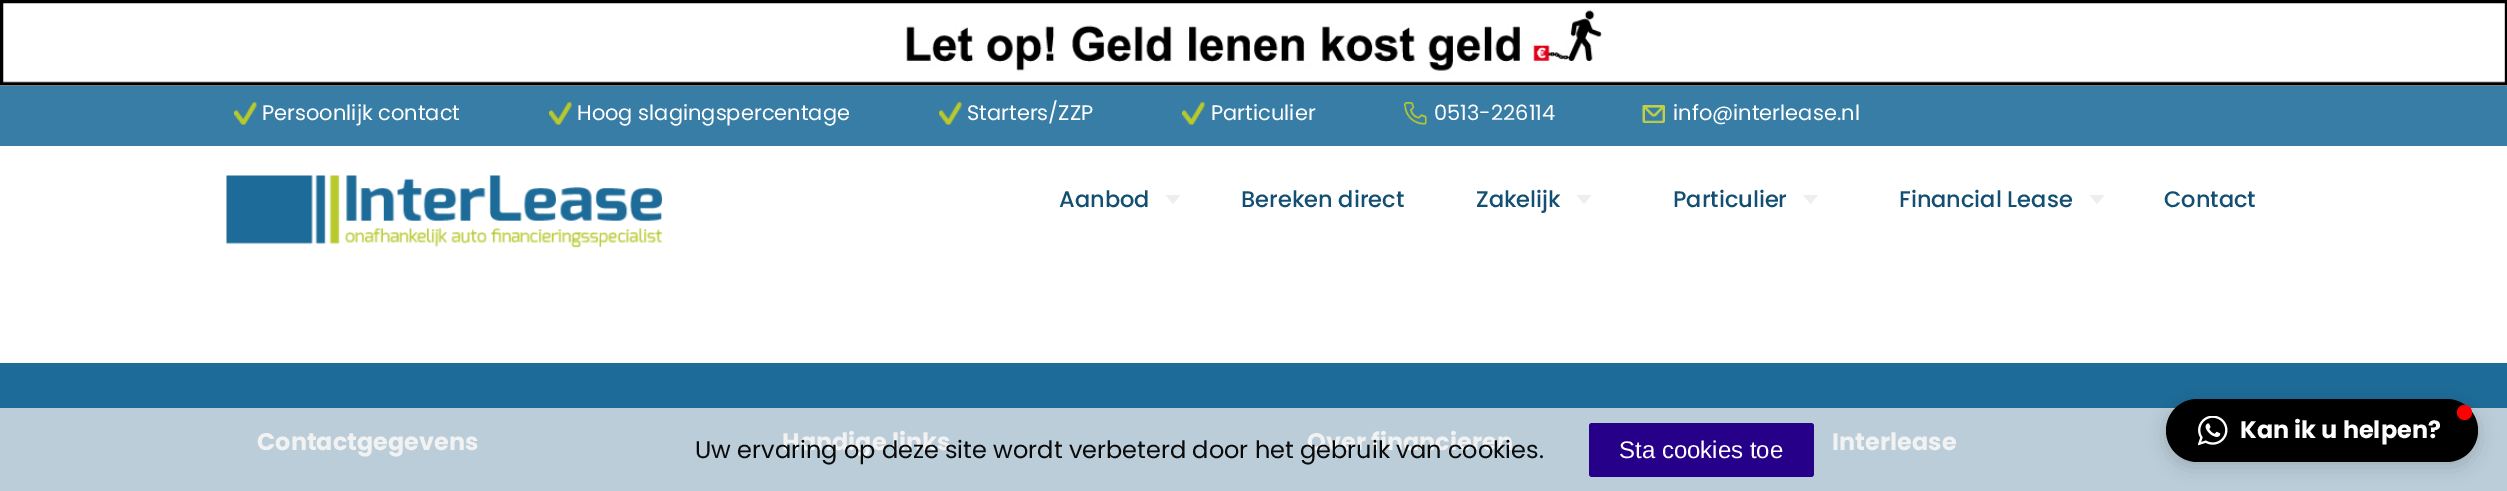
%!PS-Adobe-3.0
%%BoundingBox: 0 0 2507 491
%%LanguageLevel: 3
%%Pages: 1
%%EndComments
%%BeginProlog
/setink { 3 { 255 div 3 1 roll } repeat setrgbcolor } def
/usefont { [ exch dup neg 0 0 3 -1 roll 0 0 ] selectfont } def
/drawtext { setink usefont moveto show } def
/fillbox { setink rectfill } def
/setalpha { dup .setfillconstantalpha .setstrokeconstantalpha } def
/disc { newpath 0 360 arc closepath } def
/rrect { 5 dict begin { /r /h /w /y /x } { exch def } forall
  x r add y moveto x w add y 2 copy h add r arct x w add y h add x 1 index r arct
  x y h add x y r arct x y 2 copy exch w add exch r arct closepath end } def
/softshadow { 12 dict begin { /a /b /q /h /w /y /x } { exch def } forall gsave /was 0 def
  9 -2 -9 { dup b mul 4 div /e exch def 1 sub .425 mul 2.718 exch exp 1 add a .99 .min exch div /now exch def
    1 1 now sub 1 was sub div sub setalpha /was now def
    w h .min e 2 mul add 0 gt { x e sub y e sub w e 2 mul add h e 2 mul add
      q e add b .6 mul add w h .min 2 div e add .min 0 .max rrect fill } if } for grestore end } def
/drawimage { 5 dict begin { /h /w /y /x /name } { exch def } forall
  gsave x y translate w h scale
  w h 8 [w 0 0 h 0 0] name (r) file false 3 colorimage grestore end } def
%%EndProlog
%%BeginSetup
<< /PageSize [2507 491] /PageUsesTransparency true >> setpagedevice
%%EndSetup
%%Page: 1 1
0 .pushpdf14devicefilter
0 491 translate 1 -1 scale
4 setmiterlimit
0 0 2507 491 255 255 255 fillbox
(assets/img1.rgb) 0 0 2507 86 drawimage
0 86 2507 60 56 125 165 fillbox
(assets/img2.rgb) 234 102 23 23 drawimage
(Persoonlijk contact) 262 120 /Poppins-Regular 21 255 255 255 drawtext
(assets/img2.rgb) 549 102 23 23 drawimage
(Hoog slagingspercentage) 577 120 /Poppins-Regular 21 255 255 255 drawtext
(assets/img3.rgb) 939 102 23 23 drawimage
(Starters/ZZP) 967 120 /Poppins-Regular 21 255 255 255 drawtext
(assets/img2.rgb) 1182 102 23 23 drawimage
(Particulier) 1211 120 /Poppins-Regular 21 255 255 255 drawtext
(assets/img4.rgb) 1404 102 23 23 drawimage
(0513-226114) 1434 120 /Poppins-Regular 21 255 255 255 drawtext
(assets/img5.rgb) 1642 105 23 18 drawimage
(info@interlease.nl) 1673 120 /Poppins-Regular 21 255 255 255 drawtext
(assets/img6.rgb) 226 175 437 73 drawimage
(Aanbod) 1059 207 /Poppins-Medium 22.5 19 79 114 drawtext
238 238 238 setink
1165.5 195 moveto 1180.5 195 lineto 1173 204 lineto closepath fill
(Bereken direct) 1241 207 /Poppins-Medium 22.5 19 79 114 drawtext
(Zakelijk) 1476 207 /Poppins-Medium 22.5 19 79 114 drawtext
238 238 238 setink
1576.5 195 moveto 1591.5 195 lineto 1584 204 lineto closepath fill
(Particulier) 1673 207 /Poppins-Medium 22.5 19 79 114 drawtext
238 238 238 setink
1803 195 moveto 1818 195 lineto 1810.5 204 lineto closepath fill
(Financial Lease) 1899 207 /Poppins-Medium 22.5 19 79 114 drawtext
238 238 238 setink
2089.5 195 moveto 2104.5 195 lineto 2097 204 lineto closepath fill
(Contact) 2164 207 /Poppins-Medium 22.5 19 79 114 drawtext
0 363 2507 45 29 107 152 fillbox
0 408 2507 83 186 205 217 fillbox
(Contactgegevens) 257 450 /Poppins-Bold 24 242 242 242 drawtext
(Handige links) 782 450 /Poppins-Bold 24 242 242 242 drawtext
(Over financieren) 1307 450 /Poppins-Bold 24 242 242 242 drawtext
(Interlease) 1832 450 /Poppins-Bold 24 242 242 242 drawtext
0 0 0 setink
2166 404 312 63 31.5 9 0.15 softshadow
2166 399 312 63 31.5 rrect fill
(assets/img7.rgb) 2198 416 30 30 drawimage
255 0 0 setink
2464.5 412.5 7.5 disc fill
(Kan ik u helpen?) 2240 438 /Poppins-Bold 24 255 255 255 drawtext
(Uw ervaring op deze site wordt verbeterd door het gebruik van cookies.) 695 458 /Poppins-Regular 24 10 10 10 drawtext
38 0 137 setink
1589 423 225 54 3 rrect fill
(Sta cookies toe) 1619 458 /LiberationSans-Regular 24 255 255 255 drawtext
.poppdf14devicefilter showpage
%%EOF
